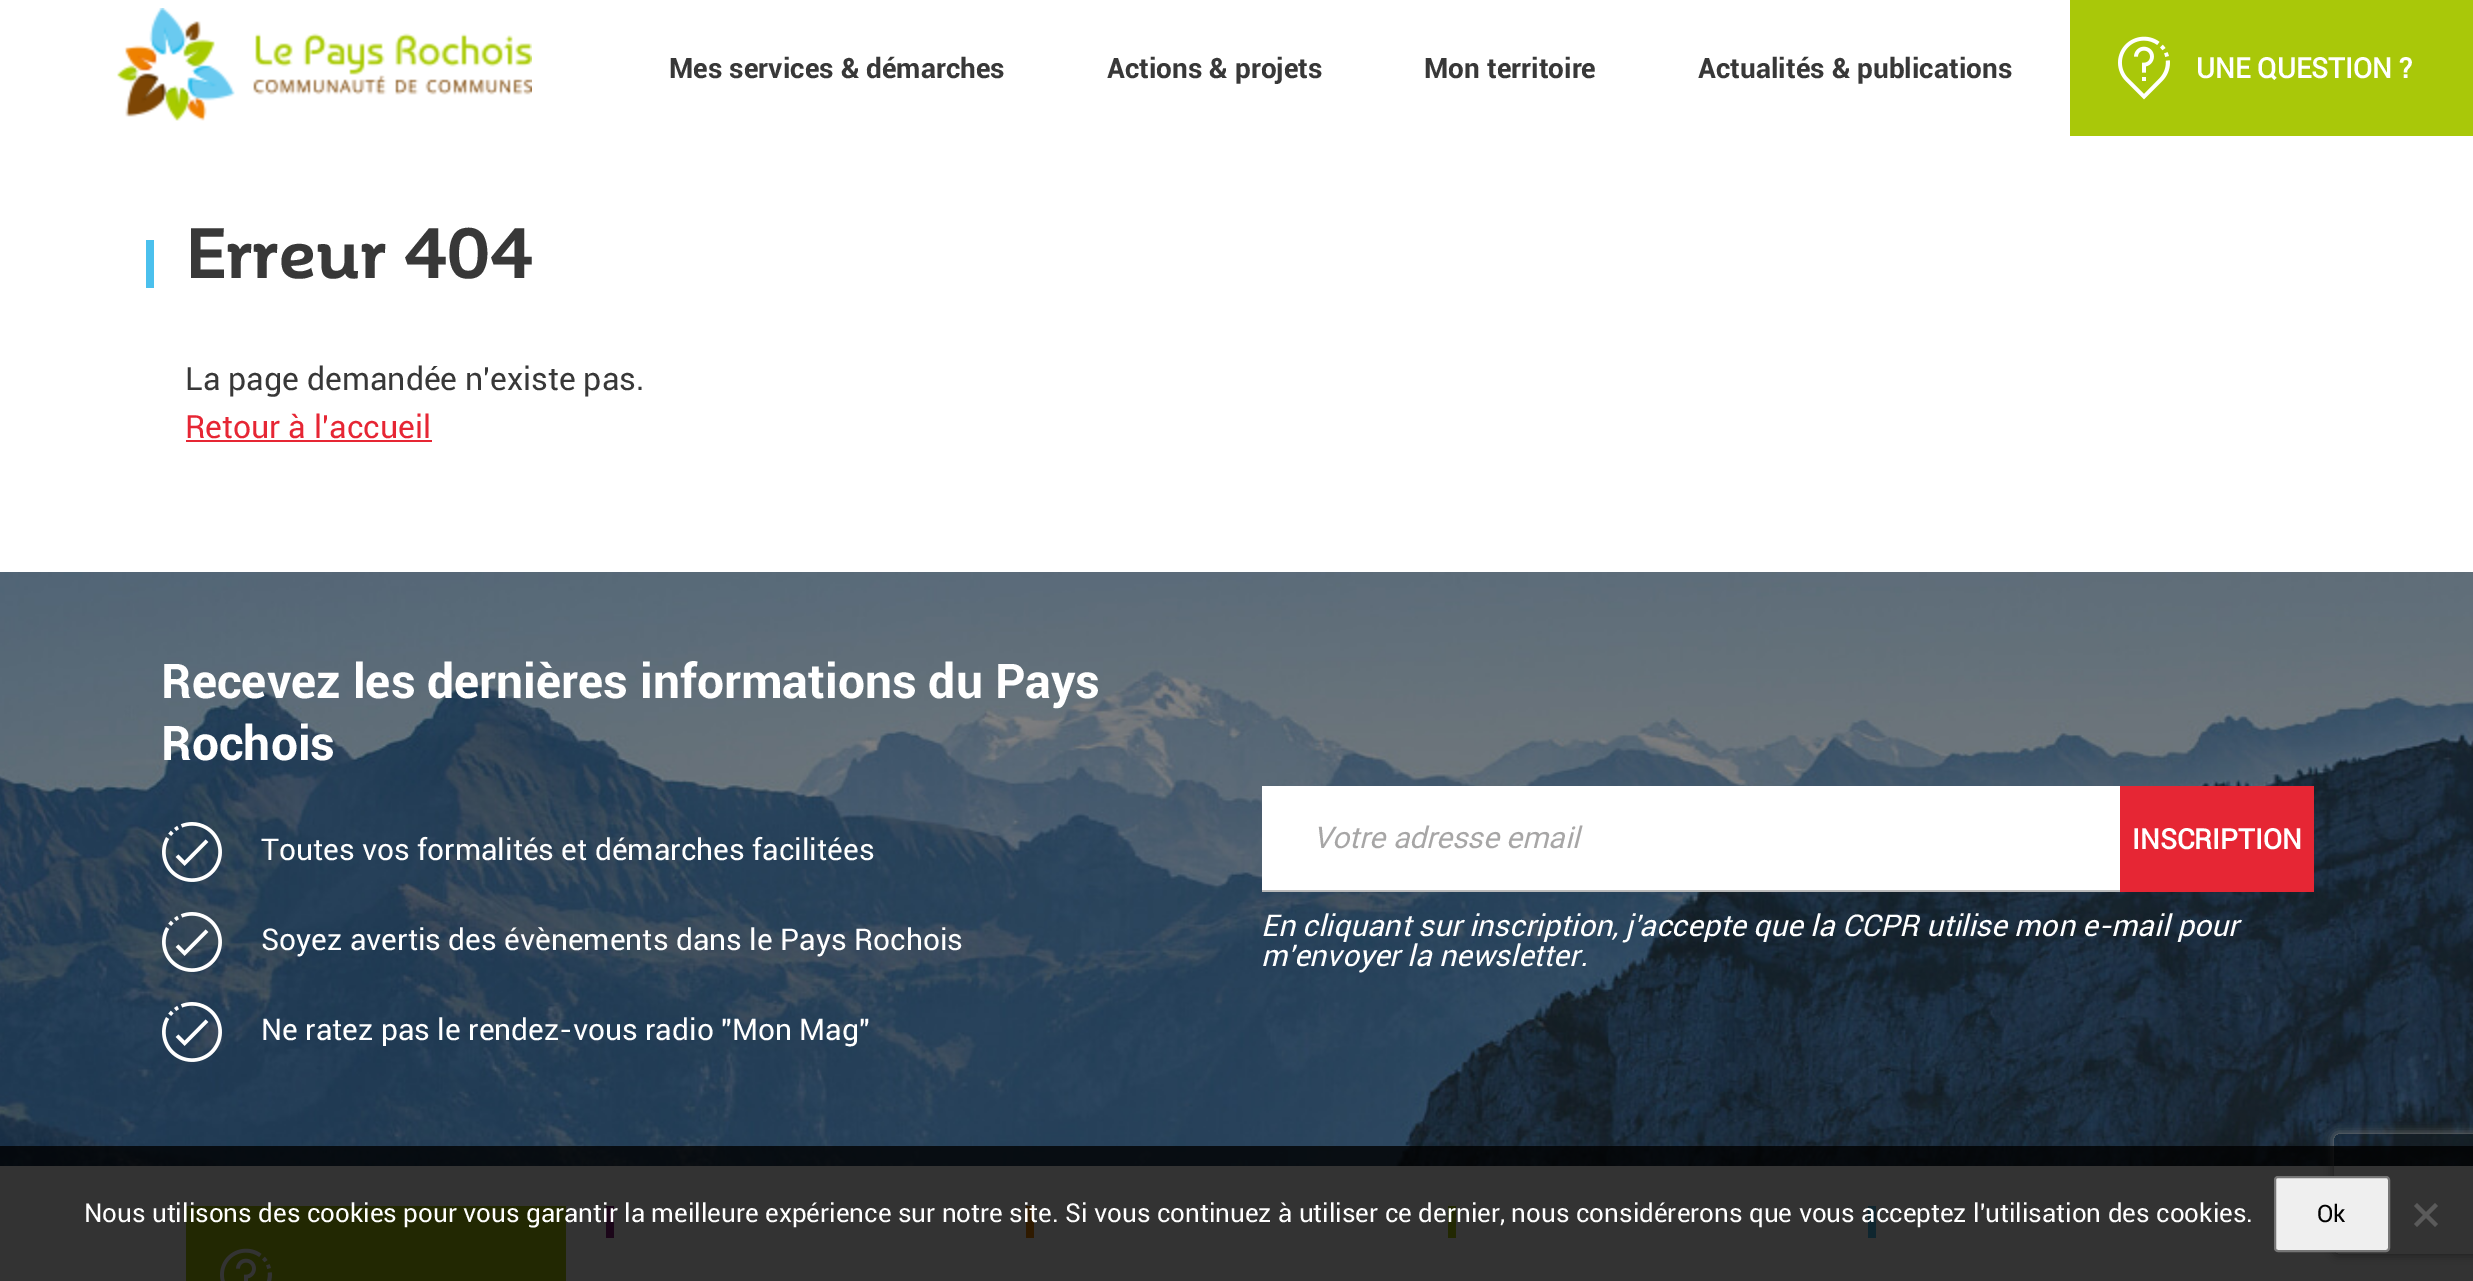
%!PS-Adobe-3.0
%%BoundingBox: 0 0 2473 1281
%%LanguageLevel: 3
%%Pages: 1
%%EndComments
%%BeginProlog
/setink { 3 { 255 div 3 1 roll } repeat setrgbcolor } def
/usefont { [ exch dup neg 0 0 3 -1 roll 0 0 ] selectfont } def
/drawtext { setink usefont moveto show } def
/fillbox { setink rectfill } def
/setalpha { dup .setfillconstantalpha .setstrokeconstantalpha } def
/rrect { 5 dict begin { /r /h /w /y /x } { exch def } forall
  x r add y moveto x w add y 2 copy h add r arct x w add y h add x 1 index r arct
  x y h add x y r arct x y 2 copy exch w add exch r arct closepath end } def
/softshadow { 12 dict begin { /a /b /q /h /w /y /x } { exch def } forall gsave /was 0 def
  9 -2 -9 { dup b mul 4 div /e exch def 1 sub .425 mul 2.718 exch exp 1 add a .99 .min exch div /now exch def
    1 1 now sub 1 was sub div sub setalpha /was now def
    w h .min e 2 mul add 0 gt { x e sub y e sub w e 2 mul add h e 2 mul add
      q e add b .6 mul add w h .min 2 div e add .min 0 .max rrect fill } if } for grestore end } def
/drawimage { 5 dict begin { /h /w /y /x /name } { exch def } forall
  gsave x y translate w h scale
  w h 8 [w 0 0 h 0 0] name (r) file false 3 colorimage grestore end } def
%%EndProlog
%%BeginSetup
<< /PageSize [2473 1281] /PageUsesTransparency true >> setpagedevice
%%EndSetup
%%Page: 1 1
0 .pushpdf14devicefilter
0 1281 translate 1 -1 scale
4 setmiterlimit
0 0 2473 1281 255 255 255 fillbox
(assets/img1.rgb) 117 8 415 113 drawimage
(Mes services & démarches) 669 78 /Roboto-Bold 28 56 56 56 drawtext
(Actions & projets) 1107 78 /Roboto-Bold 28 56 56 56 drawtext
(Mon territoire) 1424 78 /Roboto-Bold 28 56 56 56 drawtext
(Actualités & publications) 1698 78 /Roboto-Bold 28 56 56 56 drawtext
2070 0 403 136 169 200 9 fillbox
(assets/img2.rgb) 2118 36 52 64 drawimage
(UNE QUESTION ?) 2196 78 /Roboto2-Bold 28 255 255 255 drawtext
146 240 8 48 75 192 237 fillbox
(Erreur 404) 185 278 /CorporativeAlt-Bold 70 56 56 56 drawtext
(La page demandée n'existe pas.) 185 390 /Roboto-Regular 32 56 56 56 drawtext
(Retour à l'accueil) 185 438 /Roboto-Regular 32 230 38 52 drawtext
186 440 246 2 230 38 52 fillbox
(assets/img3.rgb) 0 572 2473 594 drawimage
(Recevez les dernières informations du Pays) 161 698 /Roboto-Bold 48 255 255 255 drawtext
(Rochois) 161 760 /Roboto-Bold 48 255 255 255 drawtext
(assets/img4.rgb) 162 822 60 60 drawimage
(Toutes vos formalités et démarches facilitées) 261 860 /Roboto-Regular 30 255 255 255 drawtext
(assets/img5.rgb) 162 912 60 60 drawimage
(Soyez avertis des évènements dans le Pays Rochois) 261 950 /Roboto-Regular 30 255 255 255 drawtext
(assets/img6.rgb) 162 1002 60 60 drawimage
(Ne ratez pas le rendez-vous radio "Mon Mag") 261 1040 /Roboto-Regular 30 255 255 255 drawtext
1262 786 858 104 255 255 255 fillbox
1262 890 858 2 186 186 186 fillbox
(Votre adresse email) 1313 848 /Roboto-Italic 30 167 166 166 drawtext
2120 786 194 106 230 38 52 fillbox
(INSCRIPTION) 2132 849 /Roboto2-Bold 28 255 255 255 drawtext
(En cliquant sur inscription, j'accepte que la CCPR utilise mon e-mail pour) 1261 936 /Roboto2-Italic 30 255 255 255 drawtext
(m'envoyer la newsletter.) 1261 966 /Roboto2-Italic 30 255 255 255 drawtext
gsave
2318 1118 moveto 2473 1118 lineto 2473 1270 lineto 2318 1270 lineto closepath 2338 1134 moveto 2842 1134 lineto 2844 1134 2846 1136 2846 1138 curveto 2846 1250 lineto 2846 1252 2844 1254 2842 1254 curveto 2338 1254 lineto 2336 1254 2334 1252 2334 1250 curveto 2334 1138 lineto 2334 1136 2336 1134 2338 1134 curveto closepath eoclip newpath
128 128 128 setink
2334 1134 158 120 4 5 1 softshadow
grestore
186 1206 380 75 169 200 9 fillbox
(assets/img7.rgb) 220 1248 52 33 drawimage
606 1206 8 32 134 28 124 fillbox
1026 1206 8 32 236 129 2 fillbox
1448 1206 8 32 169 200 9 fillbox
1868 1206 8 32 75 192 237 fillbox
0.8 setalpha
0 1146 2473 135 0 0 0 fillbox
1 setalpha
(Nous utilisons des cookies pour vous garantir la meilleure expérience sur notre site. Si vous continuez à utiliser ce dernier, nous considérerons que vous acceptez l'utilisation des cookies.) 84 1222 /Roboto-Regular 26 255 255 255 drawtext
239 239 239 setink
2275 1177 114 74 3 rrect gsave fill grestore
118 118 118 setink
2 setlinewidth
stroke
(Ok) 2317 1222 /Roboto-Regular 24 0 0 0 drawtext
90 90 90 setink
2435 1203 moveto 2438 1206 lineto 2417 1227 lineto 2414 1224 lineto closepath fill
2414 1206 moveto 2417 1203 lineto 2438 1224 lineto 2435 1227 lineto closepath fill
.poppdf14devicefilter showpage
%%EOF
